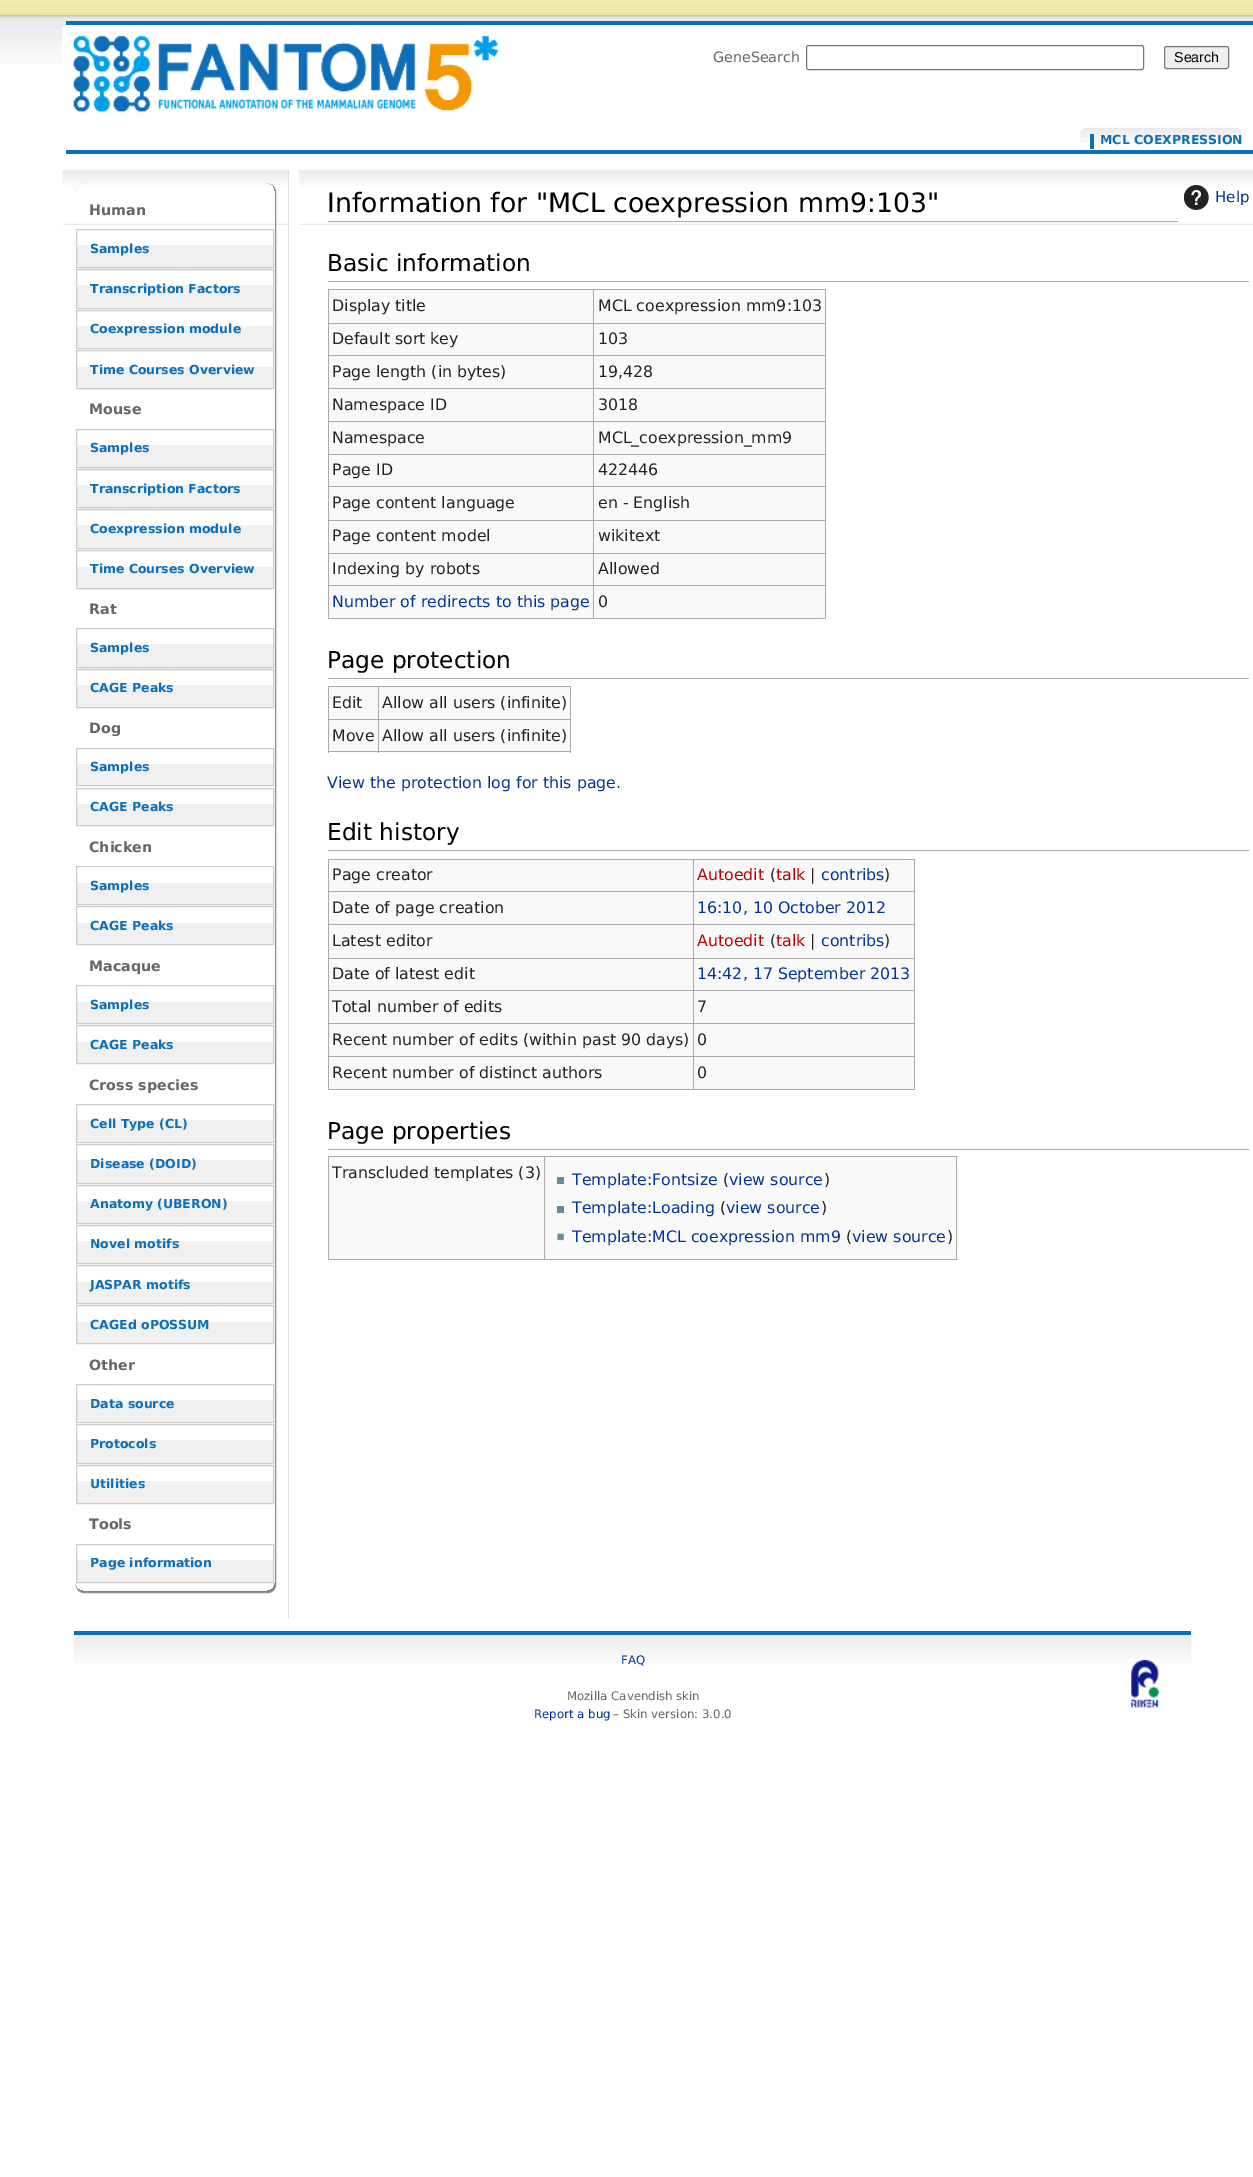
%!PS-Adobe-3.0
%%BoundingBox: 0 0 1253 2177
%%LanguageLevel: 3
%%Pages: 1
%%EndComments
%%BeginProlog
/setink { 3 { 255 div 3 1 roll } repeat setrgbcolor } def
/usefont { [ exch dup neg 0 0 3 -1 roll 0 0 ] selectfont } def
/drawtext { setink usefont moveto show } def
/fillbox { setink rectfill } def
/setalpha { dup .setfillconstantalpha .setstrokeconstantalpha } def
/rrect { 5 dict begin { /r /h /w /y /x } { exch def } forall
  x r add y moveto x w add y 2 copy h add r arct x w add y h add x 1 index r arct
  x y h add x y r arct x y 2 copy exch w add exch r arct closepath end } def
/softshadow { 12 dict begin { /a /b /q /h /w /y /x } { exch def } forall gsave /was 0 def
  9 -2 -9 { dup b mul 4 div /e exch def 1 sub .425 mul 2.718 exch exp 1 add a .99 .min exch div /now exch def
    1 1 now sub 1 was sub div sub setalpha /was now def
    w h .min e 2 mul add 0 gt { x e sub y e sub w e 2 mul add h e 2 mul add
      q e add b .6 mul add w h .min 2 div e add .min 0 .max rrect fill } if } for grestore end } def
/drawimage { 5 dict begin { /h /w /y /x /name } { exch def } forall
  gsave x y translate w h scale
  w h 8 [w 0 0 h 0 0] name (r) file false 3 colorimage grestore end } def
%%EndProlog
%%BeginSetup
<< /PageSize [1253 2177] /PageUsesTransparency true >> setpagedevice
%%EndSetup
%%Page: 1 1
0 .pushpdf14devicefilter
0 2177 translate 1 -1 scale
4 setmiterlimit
0 0 1253 2177 255 255 255 fillbox
(assets/img1.rgb) 0 0 1253 64 drawimage
70 25 moveto 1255 25 lineto 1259 25 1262 27 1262 29 curveto 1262 146 lineto 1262 148 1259 150 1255 150 curveto 70 150 lineto 66 150 62 148 62 146 curveto 62 29 lineto 62 27 66 25 70 25 curveto closepath fill
(assets/img2.rgb) 72 35 427 78 drawimage
66 21 1187 4 13 111 184 fillbox
66 150 1187 4 13 111 184 fillbox
(GeneSearch) 713 62 /DejaVuSans-Regular 14.25 102 102 102 drawtext
118 118 118 setink
806.5 45.5 337 24 2 rrect stroke
239 239 239 setink
1164.5 46.5 64 22 2 rrect gsave fill grestore
118 118 118 setink
stroke
(Search) 1174 62 /LiberationSans-Regular 14.25 0 0 0 drawtext
(assets/img3.rgb) 1080 127 162 16 drawimage
1090 134 4 15 13 111 184 fillbox
(MCL COEXPRESSION) 1100 144 /DejaVuSans-Bold 12.5 13 111 184 drawtext
(assets/img4.rgb) 62 170 226 55 drawimage
288 170 1 1448 221 221 221 fillbox
gsave
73 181 moveto 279 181 lineto 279 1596 lineto 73 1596 lineto closepath 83 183 moveto 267 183 lineto 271.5 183 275 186.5 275 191 curveto 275 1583 lineto 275 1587.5 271.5 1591 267 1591 curveto 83 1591 lineto 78.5 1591 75 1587.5 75 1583 curveto 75 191 lineto 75 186.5 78.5 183 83 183 curveto closepath eoclip newpath
128 128 128 setink
76 184 200 1409 8 0.5 1 softshadow
grestore
(Human) 89 215 /DejaVuSans-Bold 14.25 102 102 102 drawtext
77 245 196 22 240 240 240 fillbox
204 204 204 setink
76.5 229.5 197 38 rectstroke
(Samples) 90 253 /DejaVuSans-Bold 12.5 13 111 184 drawtext
77 285 196 23 240 240 240 fillbox
204 204 204 setink
76.5 269.5 197 39 rectstroke
(Transcription Factors) 90 293 /DejaVuSans-Bold 12.5 13 111 184 drawtext
77 326 196 22 240 240 240 fillbox
204 204 204 setink
76.5 310.5 197 38 rectstroke
(Coexpression module) 90 333 /DejaVuSans-Bold 12.5 13 111 184 drawtext
77 367 196 21 240 240 240 fillbox
204 204 204 setink
76.5 350.5 197 38 rectstroke
(Time Courses Overview) 90 374 /DejaVuSans-Bold 12.5 13 111 184 drawtext
(Mouse) 89 414 /DejaVuSans-Bold 14.25 102 102 102 drawtext
77 445 196 22 240 240 240 fillbox
204 204 204 setink
76.5 429.5 197 38 rectstroke
(Samples) 90 452 /DejaVuSans-Bold 12.5 13 111 184 drawtext
77 485 196 22 240 240 240 fillbox
204 204 204 setink
76.5 469.5 197 38 rectstroke
(Transcription Factors) 90 493 /DejaVuSans-Bold 12.5 13 111 184 drawtext
77 525 196 23 240 240 240 fillbox
204 204 204 setink
76.5 509.5 197 39 rectstroke
(Coexpression module) 90 533 /DejaVuSans-Bold 12.5 13 111 184 drawtext
77 567 196 21 240 240 240 fillbox
204 204 204 setink
76.5 550.5 197 38 rectstroke
(Time Courses Overview) 90 573 /DejaVuSans-Bold 12.5 13 111 184 drawtext
(Rat) 89 614 /DejaVuSans-Bold 14.25 102 102 102 drawtext
77 644 196 23 240 240 240 fillbox
204 204 204 setink
76.5 628.5 197 39 rectstroke
(Samples) 90 652 /DejaVuSans-Bold 12.5 13 111 184 drawtext
77 685 196 22 240 240 240 fillbox
204 204 204 setink
76.5 669.5 197 38 rectstroke
(CAGE Peaks) 90 692 /DejaVuSans-Bold 12.5 13 111 184 drawtext
(Dog) 89 733 /DejaVuSans-Bold 14.25 102 102 102 drawtext
77 764 196 21 240 240 240 fillbox
204 204 204 setink
76.5 748.5 197 37 rectstroke
(Samples) 90 771 /DejaVuSans-Bold 12.5 13 111 184 drawtext
77 804 196 21 240 240 240 fillbox
204 204 204 setink
76.5 788.5 197 37 rectstroke
(CAGE Peaks) 90 811 /DejaVuSans-Bold 12.5 13 111 184 drawtext
(Chicken) 89 852 /DejaVuSans-Bold 14.25 102 102 102 drawtext
77 883 196 21 240 240 240 fillbox
204 204 204 setink
76.5 866.5 197 38 rectstroke
(Samples) 90 890 /DejaVuSans-Bold 12.5 13 111 184 drawtext
77 923 196 21 240 240 240 fillbox
204 204 204 setink
76.5 906.5 197 38 rectstroke
(CAGE Peaks) 90 930 /DejaVuSans-Bold 12.5 13 111 184 drawtext
(Macaque) 89 971 /DejaVuSans-Bold 14.25 102 102 102 drawtext
77 1002 196 21 240 240 240 fillbox
204 204 204 setink
76.5 985.5 197 38 rectstroke
(Samples) 90 1009 /DejaVuSans-Bold 12.5 13 111 184 drawtext
77 1042 196 21 240 240 240 fillbox
204 204 204 setink
76.5 1025.5 197 38 rectstroke
(CAGE Peaks) 90 1049 /DejaVuSans-Bold 12.5 13 111 184 drawtext
(Cross species) 89 1090 /DejaVuSans-Bold 14.25 102 102 102 drawtext
77 1120 196 22 240 240 240 fillbox
204 204 204 setink
76.5 1104.5 197 38 rectstroke
(Cell Type \(CL\)) 90 1128 /DejaVuSans-Bold 12.5 13 111 184 drawtext
77 1160 196 23 240 240 240 fillbox
204 204 204 setink
76.5 1144.5 197 39 rectstroke
(Disease \(DOID\)) 90 1168 /DejaVuSans-Bold 12.5 13 111 184 drawtext
77 1201 196 22 240 240 240 fillbox
204 204 204 setink
76.5 1185.5 197 38 rectstroke
(Anatomy \(UBERON\)) 90 1208 /DejaVuSans-Bold 12.5 13 111 184 drawtext
77 1241 196 22 240 240 240 fillbox
204 204 204 setink
76.5 1225.5 197 38 rectstroke
(Novel motifs) 90 1248 /DejaVuSans-Bold 12.5 13 111 184 drawtext
77 1282 196 21 240 240 240 fillbox
204 204 204 setink
76.5 1265.5 197 38 rectstroke
(JASPAR motifs) 90 1289 /DejaVuSans-Bold 12.5 13 111 184 drawtext
77 1322 196 21 240 240 240 fillbox
204 204 204 setink
76.5 1305.5 197 38 rectstroke
(CAGEd oPOSSUM) 90 1329 /DejaVuSans-Bold 12.5 13 111 184 drawtext
(Other) 89 1370 /DejaVuSans-Bold 14.25 102 102 102 drawtext
77 1400 196 22 240 240 240 fillbox
204 204 204 setink
76.5 1384.5 197 38 rectstroke
(Data source) 90 1408 /DejaVuSans-Bold 12.5 13 111 184 drawtext
77 1440 196 23 240 240 240 fillbox
204 204 204 setink
76.5 1424.5 197 39 rectstroke
(Protocols) 90 1448 /DejaVuSans-Bold 12.5 13 111 184 drawtext
77 1481 196 22 240 240 240 fillbox
204 204 204 setink
76.5 1465.5 197 38 rectstroke
(Utilities) 90 1488 /DejaVuSans-Bold 12.5 13 111 184 drawtext
(Tools) 89 1529 /DejaVuSans-Bold 14.25 102 102 102 drawtext
77 1560 196 22 240 240 240 fillbox
204 204 204 setink
76.5 1544.5 197 38 rectstroke
(Page information) 90 1567 /DejaVuSans-Bold 12.5 13 111 184 drawtext
(assets/img5.rgb) 298 170 955 55 drawimage
328 221 850 1 170 170 170 fillbox
(Information for "MCL coexpression mm9:103") 327 212 /DejaVuSans-Regular 26.7 0 0 0 drawtext
(assets/img6.rgb) 1184 185 25 25 drawimage
(Help) 1215 202 /DejaVuSans-Regular 15 0 51 153 drawtext
328 281 921 1 170 170 170 fillbox
(Basic information) 327 271 /DejaVuSans-Regular 23.25 0 0 0 drawtext
249 249 249 setink
328 289 498 330 8 rrect fill
328 289 498 1 170 170 170 fillbox
825 289 1 330 170 170 170 fillbox
328 618 498 1 170 170 170 fillbox
328 289 1 330 170 170 170 fillbox
(Display title) 332 311 /DejaVuSans-Regular 15.8 34 34 34 drawtext
593 323 233 1 170 170 170 fillbox
593 355 233 1 170 170 170 fillbox
593 388 233 1 170 170 170 fillbox
593 421 233 1 170 170 170 fillbox
593 454 233 1 170 170 170 fillbox
593 486 233 1 170 170 170 fillbox
593 520 233 1 170 170 170 fillbox
593 553 233 1 170 170 170 fillbox
593 585 233 1 170 170 170 fillbox
593 585 1 34 170 170 170 fillbox
328 585 266 1 170 170 170 fillbox
593 553 1 33 170 170 170 fillbox
328 553 266 1 170 170 170 fillbox
593 520 1 34 170 170 170 fillbox
328 520 266 1 170 170 170 fillbox
593 486 1 35 170 170 170 fillbox
328 486 266 1 170 170 170 fillbox
593 454 1 34 170 170 170 fillbox
328 454 266 1 170 170 170 fillbox
593 421 1 34 170 170 170 fillbox
328 421 266 1 170 170 170 fillbox
593 388 1 35 170 170 170 fillbox
328 388 266 1 170 170 170 fillbox
593 355 1 34 170 170 170 fillbox
328 355 266 1 170 170 170 fillbox
593 323 1 33 170 170 170 fillbox
328 323 266 1 170 170 170 fillbox
593 289 1 35 170 170 170 fillbox
(MCL coexpression mm9:103) 598 311 /DejaVuSans-Regular 15.8 34 34 34 drawtext
(Default sort key) 332 344 /DejaVuSans-Regular 15.8 34 34 34 drawtext
(103) 598 344 /DejaVuSans-Regular 15.8 34 34 34 drawtext
(Page length \(in bytes\)) 332 377 /DejaVuSans-Regular 15.8 34 34 34 drawtext
(19,428) 598 377 /DejaVuSans-Regular 15.8 34 34 34 drawtext
(Namespace ID) 332 410 /DejaVuSans-Regular 15.8 34 34 34 drawtext
(3018) 598 410 /DejaVuSans-Regular 15.8 34 34 34 drawtext
(Namespace) 332 443 /DejaVuSans-Regular 15.8 34 34 34 drawtext
(MCL_coexpression_mm9) 598 443 /DejaVuSans-Regular 15.8 34 34 34 drawtext
(Page ID) 332 475 /DejaVuSans-Regular 15.8 34 34 34 drawtext
(422446) 598 475 /DejaVuSans-Regular 15.8 34 34 34 drawtext
(Page content language) 332 508 /DejaVuSans-Regular 15.8 34 34 34 drawtext
(en - English) 598 508 /DejaVuSans-Regular 15.8 34 34 34 drawtext
(Page content model) 332 541 /DejaVuSans-Regular 15.8 34 34 34 drawtext
(wikitext) 598 541 /DejaVuSans-Regular 15.8 34 34 34 drawtext
(Indexing by robots) 332 574 /DejaVuSans-Regular 15.8 34 34 34 drawtext
(Allowed) 598 574 /DejaVuSans-Regular 15.8 34 34 34 drawtext
(Number of redirects to this page) 332 607 /DejaVuSans-Regular 15.8 0 51 153 drawtext
(0) 598 607 /DejaVuSans-Regular 15.8 34 34 34 drawtext
328 678 921 1 170 170 170 fillbox
(Page protection) 327 668 /DejaVuSans-Regular 23.25 0 0 0 drawtext
249 249 249 setink
328 686 243 67 8 rrect fill
328 686 243 1 170 170 170 fillbox
570 686 1 67 170 170 170 fillbox
328 751 243 1 170 170 170 fillbox
328 686 1 67 170 170 170 fillbox
(Edit) 332 708 /DejaVuSans-Regular 15.8 34 34 34 drawtext
378 719 193 1 170 170 170 fillbox
378 719 1 34 170 170 170 fillbox
328 719 51 1 170 170 170 fillbox
378 686 1 34 170 170 170 fillbox
(Allow all users \(infinite\)) 382 708 /DejaVuSans-Regular 15.8 34 34 34 drawtext
(Move) 332 741 /DejaVuSans-Regular 15.8 34 34 34 drawtext
(Allow all users \(infinite\)) 382 741 /DejaVuSans-Regular 15.8 34 34 34 drawtext
(View the protection log for this page.) 327 788 /DejaVuSans-Regular 15.8 0 51 153 drawtext
328 850 921 1 170 170 170 fillbox
(Edit history) 327 840 /DejaVuSans-Regular 23.25 0 0 0 drawtext
249 249 249 setink
328 859 587 231 8 rrect fill
328 859 587 1 170 170 170 fillbox
914 859 1 231 170 170 170 fillbox
328 1089 587 1 170 170 170 fillbox
328 859 1 231 170 170 170 fillbox
(Page creator) 332 880 /DejaVuSans-Regular 15.8 34 34 34 drawtext
693 891 222 1 170 170 170 fillbox
693 924 222 1 170 170 170 fillbox
693 958 222 1 170 170 170 fillbox
693 990 222 1 170 170 170 fillbox
693 1023 222 1 170 170 170 fillbox
693 1056 222 1 170 170 170 fillbox
693 1056 1 34 170 170 170 fillbox
328 1056 366 1 170 170 170 fillbox
693 1023 1 35 170 170 170 fillbox
328 1023 366 1 170 170 170 fillbox
693 990 1 34 170 170 170 fillbox
328 990 366 1 170 170 170 fillbox
693 958 1 33 170 170 170 fillbox
328 958 366 1 170 170 170 fillbox
693 924 1 35 170 170 170 fillbox
328 924 366 1 170 170 170 fillbox
693 891 1 34 170 170 170 fillbox
328 891 366 1 170 170 170 fillbox
693 859 1 34 170 170 170 fillbox
(Autoedit) 697 880 /DejaVuSans-Regular 15.8 186 0 0 drawtext
(\() 770 880 /DejaVuSans-Regular 15.8 34 34 34 drawtext
(talk) 776 880 /DejaVuSans-Regular 15.8 186 0 0 drawtext
(|) 810 880 /DejaVuSans-Regular 15.8 34 34 34 drawtext
(contribs) 821 880 /DejaVuSans-Regular 15.8 0 51 153 drawtext
(\)) 884 880 /DejaVuSans-Regular 15.8 34 34 34 drawtext
(Date of page creation) 332 913 /DejaVuSans-Regular 15.8 34 34 34 drawtext
(16:10, 10 October 2012) 697 913 /DejaVuSans-Regular 15.8 0 51 153 drawtext
(Latest editor) 332 946 /DejaVuSans-Regular 15.8 34 34 34 drawtext
(Autoedit) 697 946 /DejaVuSans-Regular 15.8 186 0 0 drawtext
(\() 770 946 /DejaVuSans-Regular 15.8 34 34 34 drawtext
(talk) 776 946 /DejaVuSans-Regular 15.8 186 0 0 drawtext
(|) 810 946 /DejaVuSans-Regular 15.8 34 34 34 drawtext
(contribs) 821 946 /DejaVuSans-Regular 15.8 0 51 153 drawtext
(\)) 884 946 /DejaVuSans-Regular 15.8 34 34 34 drawtext
(Date of latest edit) 332 979 /DejaVuSans-Regular 15.8 34 34 34 drawtext
(14:42, 17 September 2013) 697 979 /DejaVuSans-Regular 15.8 0 51 153 drawtext
(Total number of edits) 332 1012 /DejaVuSans-Regular 15.8 34 34 34 drawtext
(7) 697 1012 /DejaVuSans-Regular 15.8 34 34 34 drawtext
(Recent number of edits \(within past 90 days\)) 332 1045 /DejaVuSans-Regular 15.8 34 34 34 drawtext
(0) 697 1045 /DejaVuSans-Regular 15.8 34 34 34 drawtext
(Recent number of distinct authors) 332 1078 /DejaVuSans-Regular 15.8 34 34 34 drawtext
(0) 697 1078 /DejaVuSans-Regular 15.8 34 34 34 drawtext
328 1149 921 1 170 170 170 fillbox
(Page properties) 327 1139 /DejaVuSans-Regular 23.25 0 0 0 drawtext
249 249 249 setink
328 1156 630 104 8 rrect fill
328 1156 630 1 170 170 170 fillbox
956 1156 1 104 170 170 170 fillbox
328 1259 630 1 170 170 170 fillbox
328 1156 1 104 170 170 170 fillbox
(Transcluded templates \(3\)) 332 1178 /DejaVuSans-Regular 15.8 34 34 34 drawtext
544 1156 1 104 170 170 170 fillbox
557 1177 7 7 99 140 156 fillbox
(Template:Fontsize) 572 1185 /DejaVuSans-Regular 15.8 0 51 153 drawtext
(\() 723 1185 /DejaVuSans-Regular 15.8 34 34 34 drawtext
(view source) 729 1185 /DejaVuSans-Regular 15.8 0 51 153 drawtext
(\)) 824 1185 /DejaVuSans-Regular 15.8 34 34 34 drawtext
557 1206 7 7 99 140 156 fillbox
(Template:Loading) 572 1213 /DejaVuSans-Regular 15.8 0 51 153 drawtext
(\() 720 1213 /DejaVuSans-Regular 15.8 34 34 34 drawtext
(view source) 726 1213 /DejaVuSans-Regular 15.8 0 51 153 drawtext
(\)) 821 1213 /DejaVuSans-Regular 15.8 34 34 34 drawtext
(assets/img7.rgb) 557 1233 7 8 drawimage
(Template:MCL coexpression mm9) 572 1242 /DejaVuSans-Regular 15.8 0 51 153 drawtext
(\() 846 1242 /DejaVuSans-Regular 15.8 34 34 34 drawtext
(view source) 852 1242 /DejaVuSans-Regular 15.8 0 51 153 drawtext
(\)) 947 1242 /DejaVuSans-Regular 15.8 34 34 34 drawtext
(assets/img8.rgb) 73 1635 1119 28 drawimage
74 1631 1117 4 13 111 184 fillbox
(FAQ) 621 1664 /DejaVuSans-Regular 11.75 0 51 153 drawtext
(assets/img9.rgb) 1128 1659 33 50 drawimage
(Mozilla Cavendish skin) 567 1700 /DejaVuSans-Regular 11.75 102 102 102 drawtext
(Report a bug) 534 1718 /DejaVuSans-Regular 11.75 0 51 153 drawtext
(– Skin version: 3.0.0) 613 1718 /DejaVuSans-Regular 11.75 102 102 102 drawtext
.poppdf14devicefilter showpage
%%EOF
